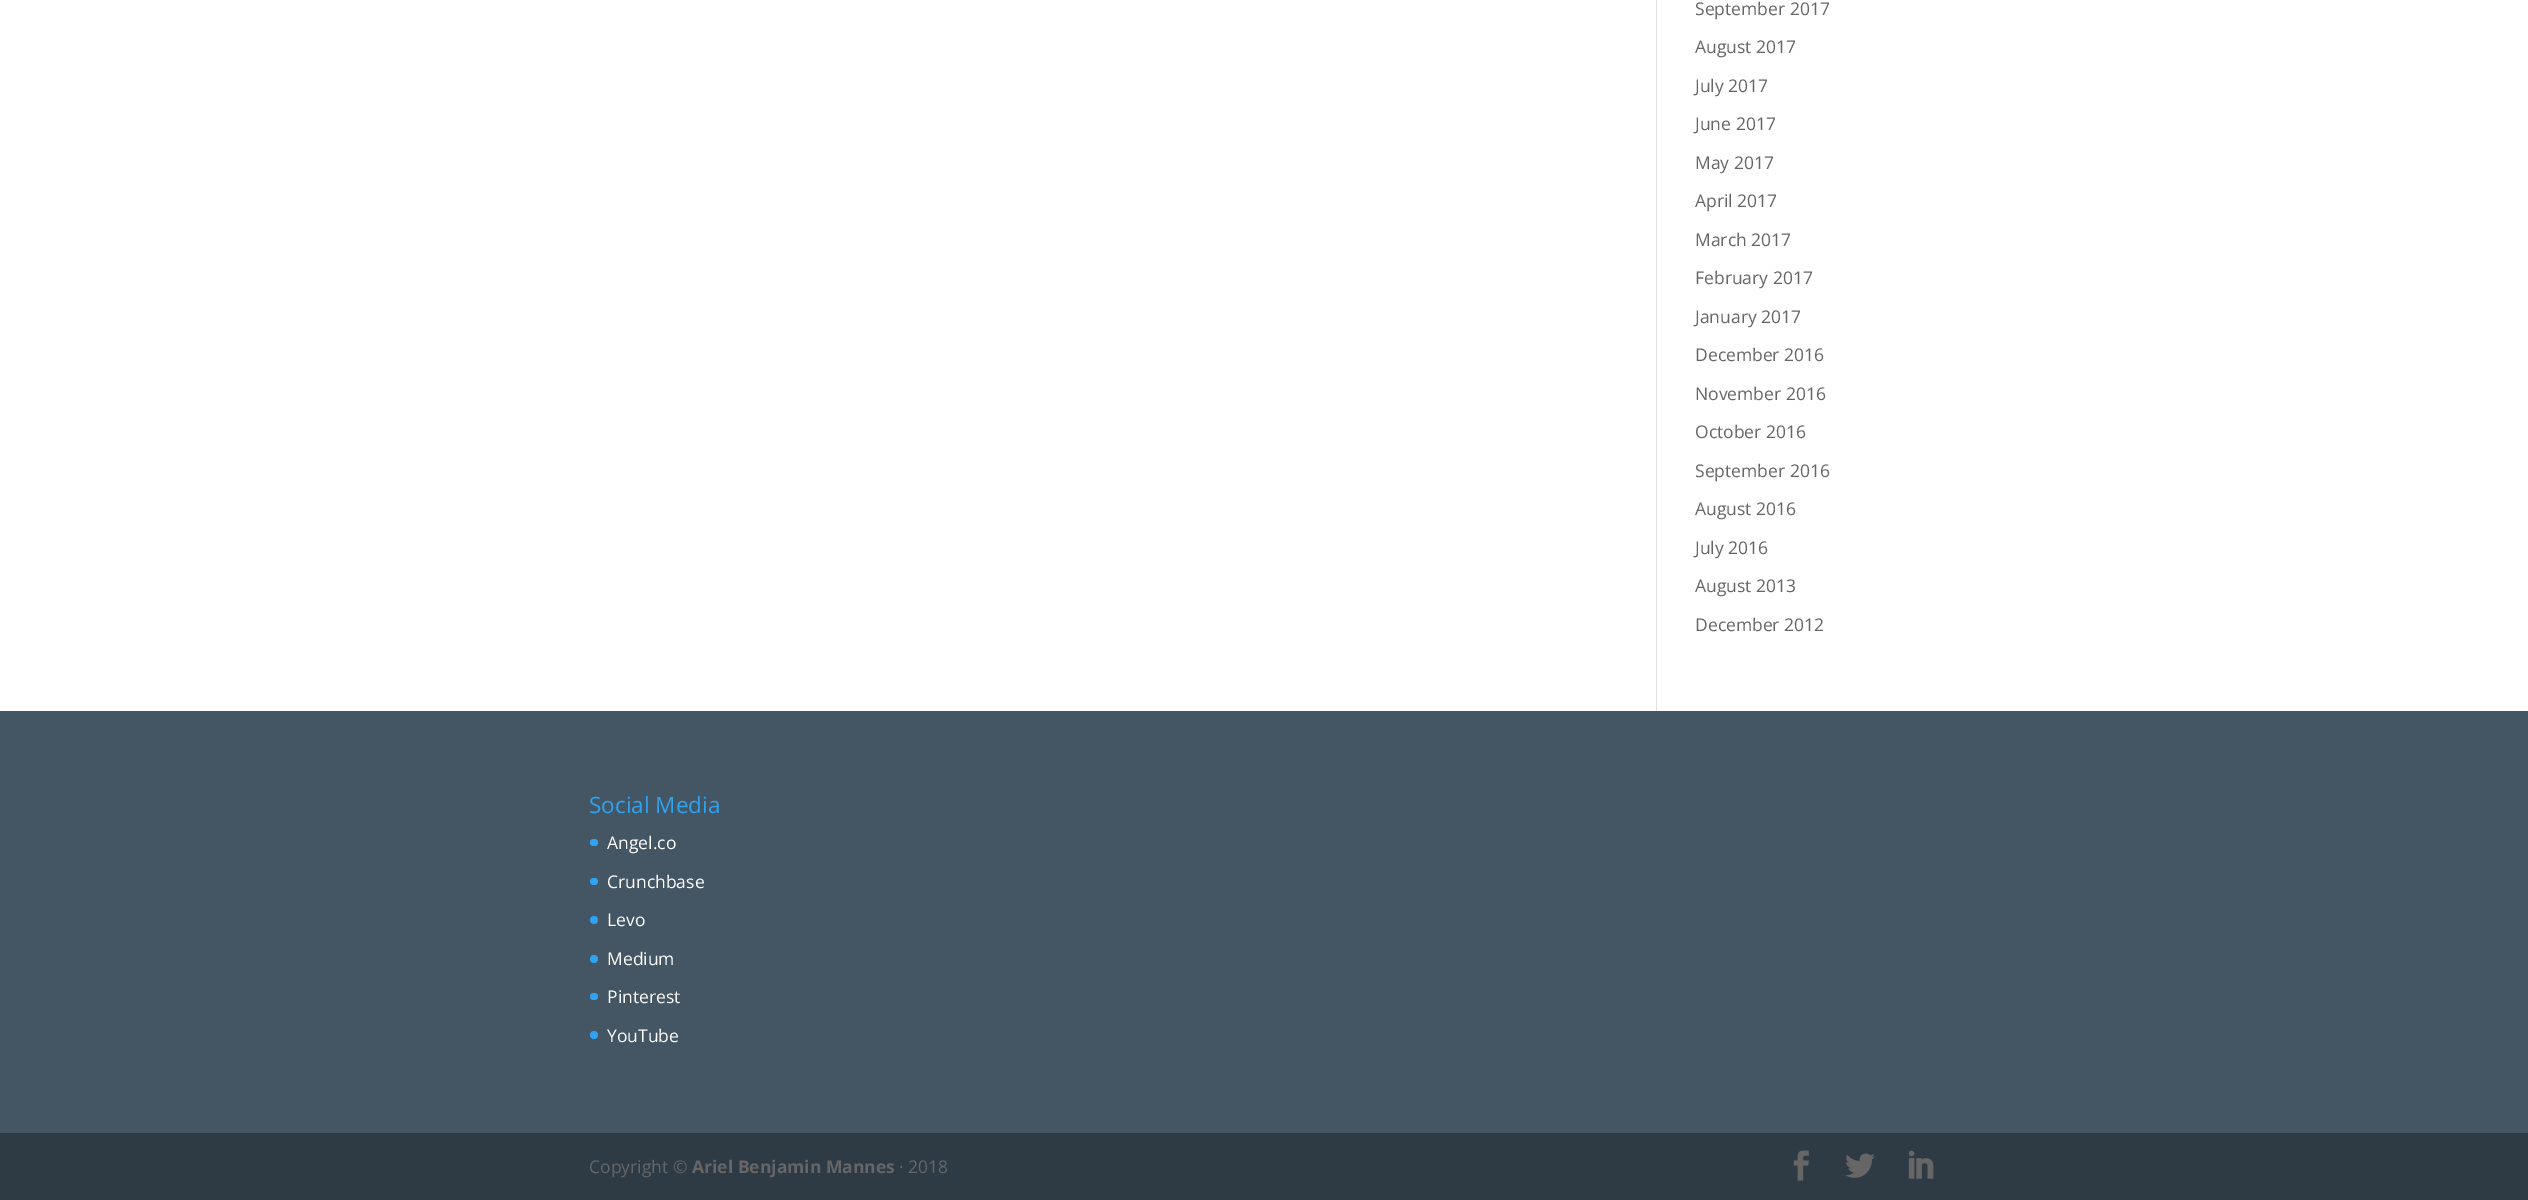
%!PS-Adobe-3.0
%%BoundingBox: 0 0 2528 1200
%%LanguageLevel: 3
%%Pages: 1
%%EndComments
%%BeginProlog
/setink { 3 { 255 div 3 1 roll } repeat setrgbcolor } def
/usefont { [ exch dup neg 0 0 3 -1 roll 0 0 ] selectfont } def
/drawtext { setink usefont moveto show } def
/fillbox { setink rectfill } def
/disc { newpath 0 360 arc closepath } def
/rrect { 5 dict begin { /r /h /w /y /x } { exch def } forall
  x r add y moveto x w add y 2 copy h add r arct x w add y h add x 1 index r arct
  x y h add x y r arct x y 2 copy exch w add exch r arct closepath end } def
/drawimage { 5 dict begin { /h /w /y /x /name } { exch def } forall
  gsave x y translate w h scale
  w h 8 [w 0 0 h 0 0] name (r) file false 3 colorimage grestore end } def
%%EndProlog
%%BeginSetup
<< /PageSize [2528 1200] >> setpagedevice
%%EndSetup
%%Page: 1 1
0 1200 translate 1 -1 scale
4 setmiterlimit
0 0 2528 1200 255 255 255 fillbox
1656 0 1 711 226 226 226 fillbox
(September 2017) 1695 15 /OpenSans-Regular 17.5 102 102 102 drawtext
(August 2017) 1695 53 /OpenSans-Regular 17.5 102 102 102 drawtext
(July 2017) 1695 92 /OpenSans-Regular 17.5 102 102 102 drawtext
(June 2017) 1695 130 /OpenSans-Regular 17.5 102 102 102 drawtext
(May 2017) 1695 169 /OpenSans-Regular 17.5 102 102 102 drawtext
(April 2017) 1695 207 /OpenSans-Regular 17.5 102 102 102 drawtext
(March 2017) 1695 246 /OpenSans-Regular 17.5 102 102 102 drawtext
(February 2017) 1695 284 /OpenSans-Regular 17.5 102 102 102 drawtext
(January 2017) 1695 323 /OpenSans-Regular 17.5 102 102 102 drawtext
(December 2016) 1695 361 /OpenSans-Regular 17.5 102 102 102 drawtext
(November 2016) 1695 400 /OpenSans-Regular 17.5 102 102 102 drawtext
(October 2016) 1695 438 /OpenSans-Regular 17.5 102 102 102 drawtext
(September 2016) 1695 477 /OpenSans-Regular 17.5 102 102 102 drawtext
(August 2016) 1695 515 /OpenSans-Regular 17.5 102 102 102 drawtext
(July 2016) 1695 554 /OpenSans-Regular 17.5 102 102 102 drawtext
(August 2013) 1695 592 /OpenSans-Regular 17.5 102 102 102 drawtext
(December 2012) 1695 631 /OpenSans-Regular 17.5 102 102 102 drawtext
0 711 2528 422 68 85 100 fillbox
(Social Media) 589 813 /OpenSans-Regular 22.5 46 163 242 drawtext
590 839 8 7 3.5 rrect fill
(Angel.co) 607 849 /OpenSans-Regular 17.5 255 255 255 drawtext
46 163 242 setink
590 878 8 7 3.5 rrect fill
(Crunchbase) 607 888 /OpenSans-Regular 17.5 255 255 255 drawtext
46 163 242 setink
594 920 4 disc fill
(Levo) 607 926 /OpenSans-Regular 17.5 255 255 255 drawtext
46 163 242 setink
594 959 4 disc fill
(Medium) 607 965 /OpenSans-Regular 17.5 255 255 255 drawtext
46 163 242 setink
590 993 8 7 3.5 rrect fill
(Pinterest) 607 1003 /OpenSans-Regular 17.5 255 255 255 drawtext
46 163 242 setink
594 1035 4 disc fill
(YouTube) 607 1042 /OpenSans-Regular 17.5 255 255 255 drawtext
0 1133 2528 67 46 58 68 fillbox
(Copyright ©) 589 1173 /OpenSans-Regular 17.5 102 102 102 drawtext
(Ariel Benjamin Mannes) 692 1173 /OpenSans-Bold 17.5 102 102 102 drawtext
(· 2018) 899 1173 /OpenSans-Regular 17.5 102 102 102 drawtext
(assets/img1.rgb) 1793 1150 16 31 drawimage
(assets/img2.rgb) 1845 1153 30 25 drawimage
(assets/img3.rgb) 1908 1150 26 29 drawimage
showpage
%%EOF
